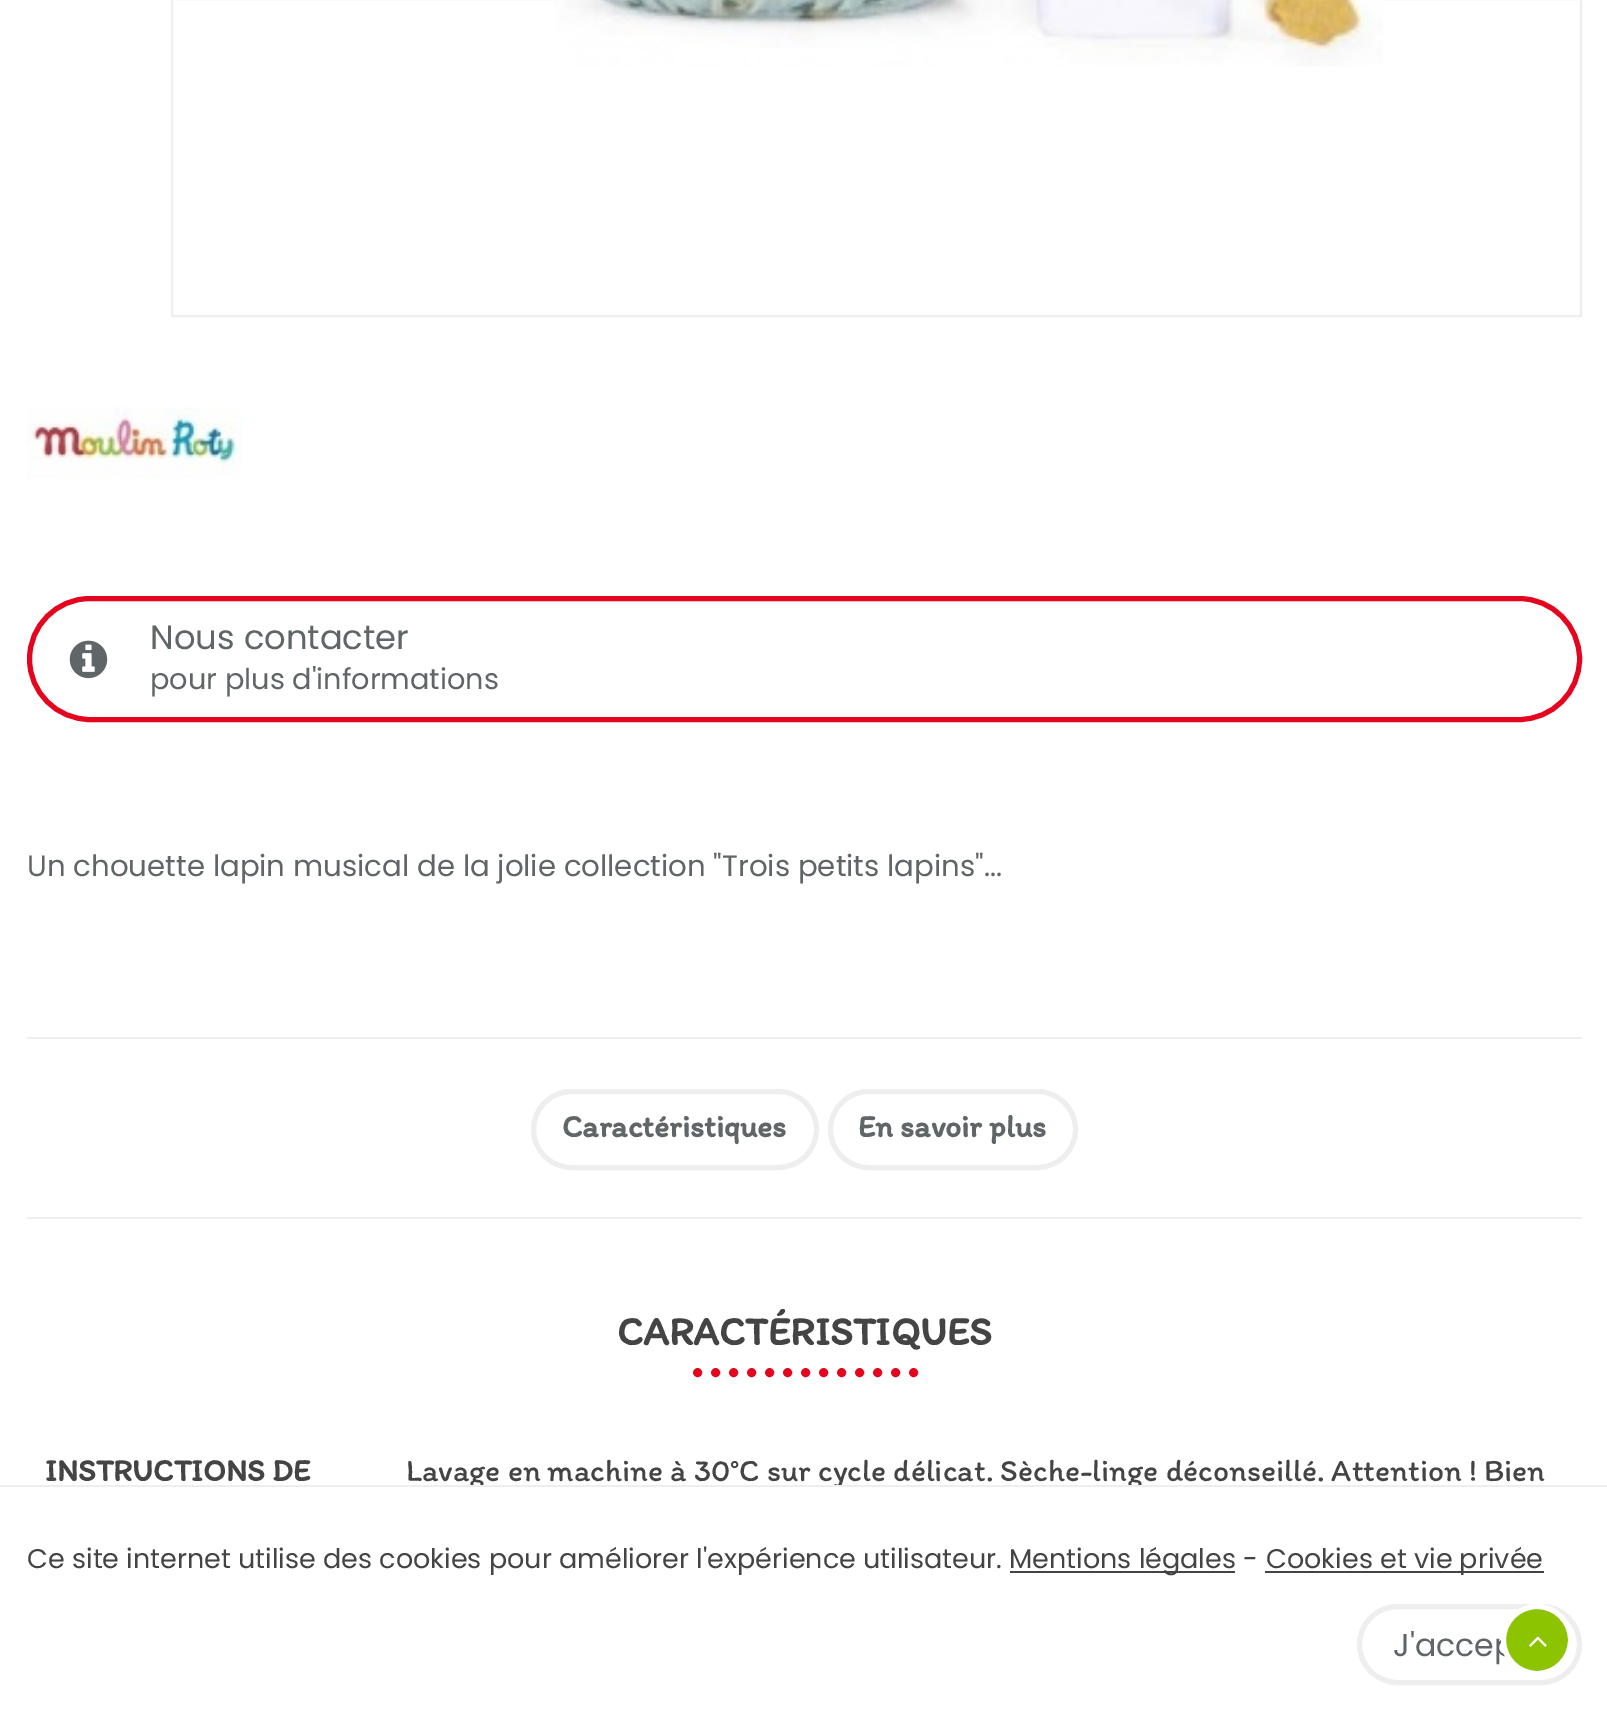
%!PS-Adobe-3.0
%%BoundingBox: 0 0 1607 1712
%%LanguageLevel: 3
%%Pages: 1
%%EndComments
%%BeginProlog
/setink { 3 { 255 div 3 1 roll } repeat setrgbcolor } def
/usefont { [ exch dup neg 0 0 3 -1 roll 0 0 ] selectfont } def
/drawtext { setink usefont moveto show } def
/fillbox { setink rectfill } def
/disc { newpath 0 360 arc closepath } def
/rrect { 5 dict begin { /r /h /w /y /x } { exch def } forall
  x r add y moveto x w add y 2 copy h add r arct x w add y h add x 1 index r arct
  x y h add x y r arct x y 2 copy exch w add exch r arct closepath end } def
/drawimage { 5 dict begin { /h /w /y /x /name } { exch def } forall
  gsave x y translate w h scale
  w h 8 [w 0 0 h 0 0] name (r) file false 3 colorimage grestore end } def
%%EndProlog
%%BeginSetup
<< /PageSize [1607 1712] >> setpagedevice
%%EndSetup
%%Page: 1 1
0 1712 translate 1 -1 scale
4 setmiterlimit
0 0 1607 1712 255 255 255 fillbox
238 238 238 setink
2 setlinewidth
172 -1 1409 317 rectstroke
(assets/img1.rgb) 555 0 828 67 drawimage
(assets/img2.rgb) 27 407 216 72 drawimage
228 5 31 setink
5 setlinewidth
29.5 598.5 1550 121 60.5 rrect stroke
(Nous contacter) 150 649 /Poppins-Regular 33.75 96 102 103 drawtext
(assets/img3.rgb) 69 640 39 39 drawimage
(pour plus d'informations) 150 689 /Poppins-Regular 28.75 96 102 103 drawtext
(Un chouette lapin musical de la jolie collection "Trois petits lapins"...) 27 876 /Poppins-Regular 29.25 96 102 103 drawtext
27 1037 1555 2 238 238 238 fillbox
27 1217 1555 2 238 238 238 fillbox
533.5 1091.5 283 76 38 rrect stroke
(Caractéristiques) 562 1137 /Itim-Bold 31.5 96 102 103 drawtext
238 238 238 setink
830.5 1091.5 245 76 38 rrect stroke
(En savoir plus) 858 1137 /Itim-Bold 31.5 96 102 103 drawtext
(CARACTÉRISTIQUES) 617 1345 /Itim-Bold 40.5 68 68 68 drawtext
228 5 31 setink
9 setlinewidth
1 setlinecap
[0 18] 0 setdash
697.5 1372.5 moveto 913.5 1372.5 lineto stroke
(INSTRUCTIONS DE) 45 1481 /Itim-Bold 31.5 68 68 68 drawtext
(Lavage en machine à 30°C sur cycle délicat. Sèche-linge déconseillé. Attention ! Bien) 406 1481 /Itim-Regular 31.5 68 68 68 drawtext
238 238 238 setink
0 1485 moveto 0 1487 lineto 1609 1487 lineto 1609 1710 lineto 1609 1485 lineto closepath fill
472 1487 667 2 255 255 255 fillbox
(Ce site internet utilise des cookies pour améliorer l'expérience utilisateur.) 27 1568 /Poppins-Regular 27 68 68 68 drawtext
1010 1571 225 2 68 68 68 fillbox
(Mentions légales -) 1009 1568 /Poppins-Regular 27 68 68 68 drawtext
1265 1571 279 2 68 68 68 fillbox
(Cookies et vie privée) 1266 1568 /Poppins-Regular 27 68 68 68 drawtext
238 238 238 setink
5 setlinewidth
0 setlinecap
[] 0 setdash
1359.5 1606.5 220 76 38 rrect stroke
(J'accep) 1393 1656 /Poppins-Regular 31.5 96 102 103 drawtext
140 196 2 setink
1537 1640 33.5 disc gsave fill grestore
255 255 255 setink
stroke
(assets/img4.rgb) 1529 1636 18 11 drawimage
showpage
%%EOF
